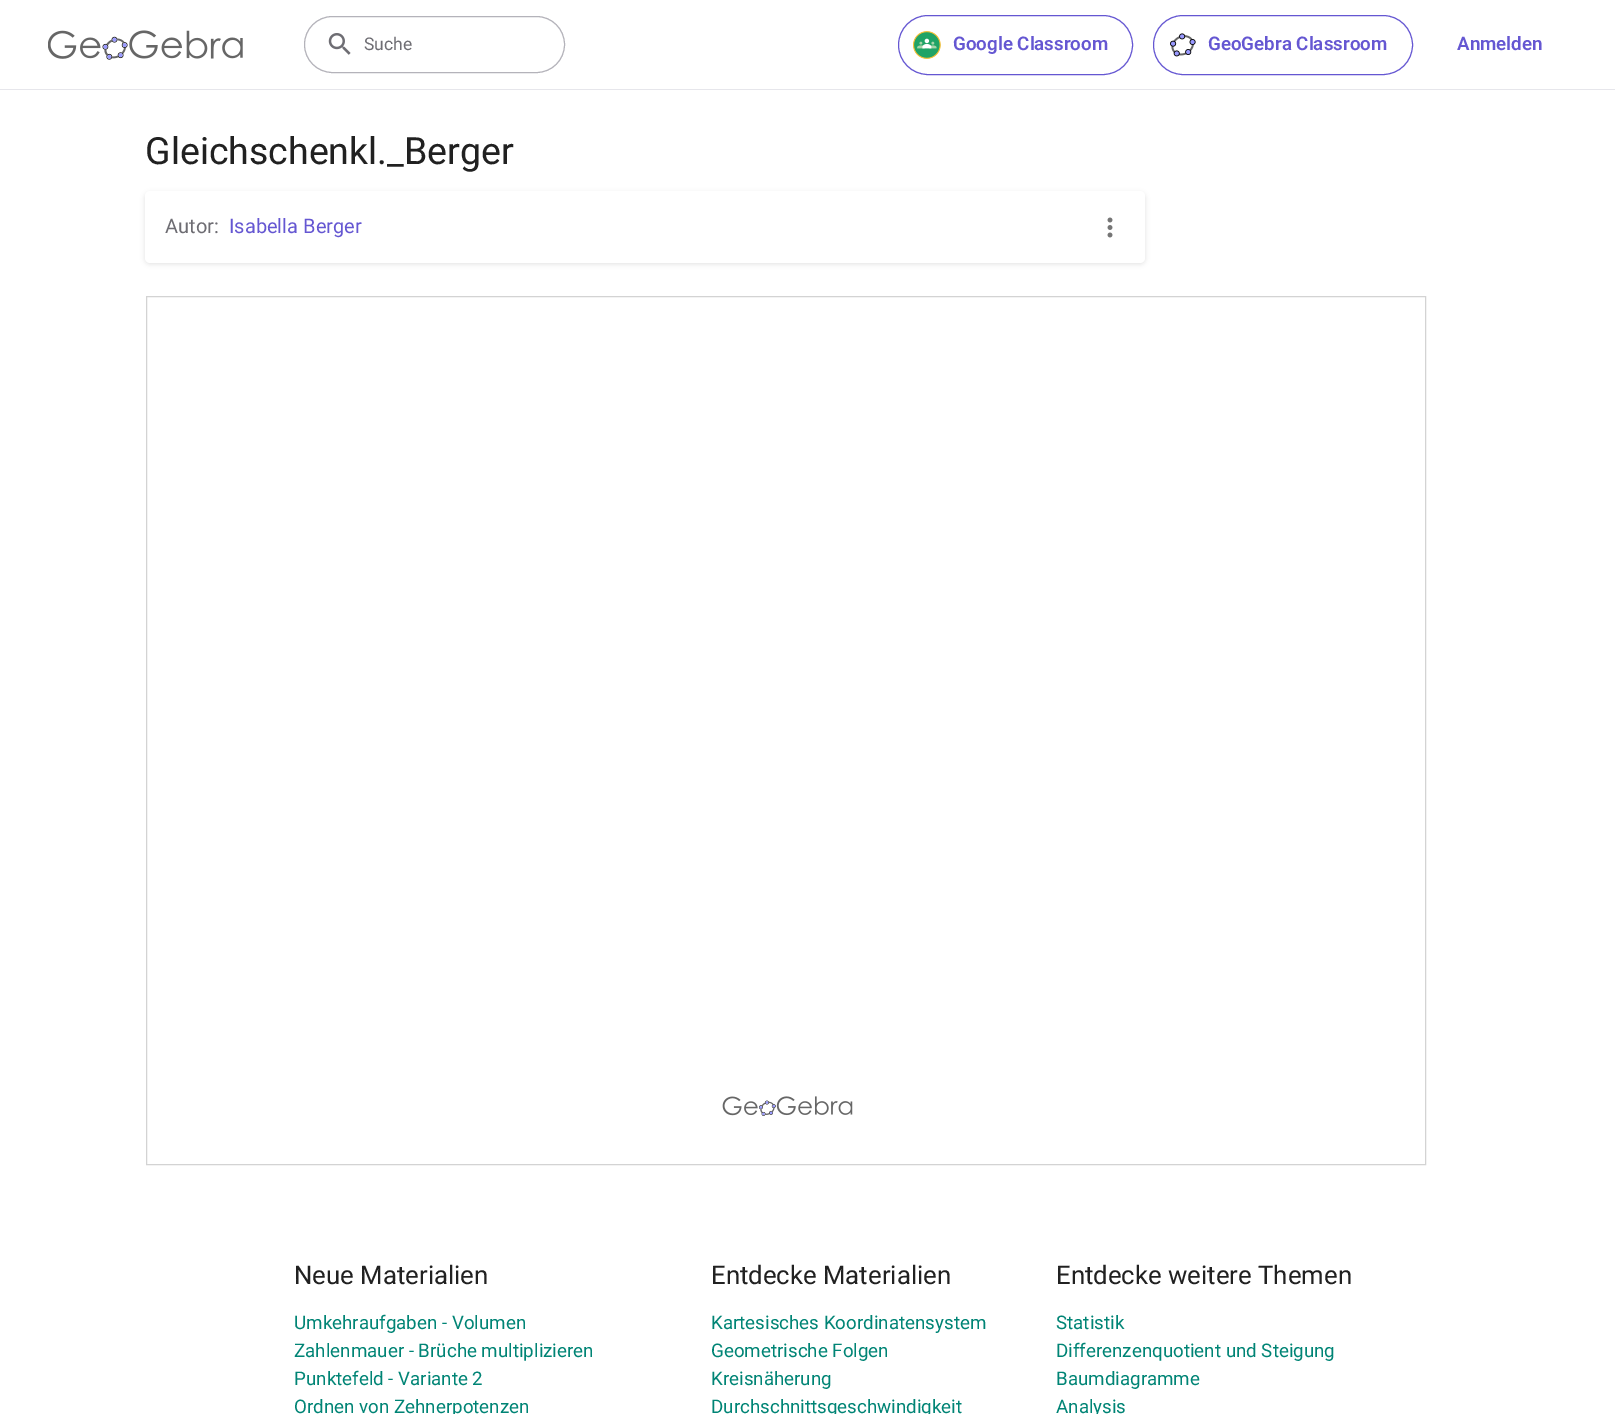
%!PS-Adobe-3.0
%%BoundingBox: 0 0 1615 1414
%%LanguageLevel: 3
%%Pages: 1
%%EndComments
%%BeginProlog
/setink { 3 { 255 div 3 1 roll } repeat setrgbcolor } def
/usefont { [ exch dup neg 0 0 3 -1 roll 0 0 ] selectfont } def
/drawtext { setink usefont moveto show } def
/fillbox { setink rectfill } def
/setalpha { dup .setfillconstantalpha .setstrokeconstantalpha } def
/rrect { 5 dict begin { /r /h /w /y /x } { exch def } forall
  x r add y moveto x w add y 2 copy h add r arct x w add y h add x 1 index r arct
  x y h add x y r arct x y 2 copy exch w add exch r arct closepath end } def
/softshadow { 12 dict begin { /a /b /q /h /w /y /x } { exch def } forall gsave /was 0 def
  9 -2 -9 { dup b mul 4 div /e exch def 1 sub .425 mul 2.718 exch exp 1 add a .99 .min exch div /now exch def
    1 1 now sub 1 was sub div sub setalpha /was now def
    w h .min e 2 mul add 0 gt { x e sub y e sub w e 2 mul add h e 2 mul add
      q e add b .6 mul add w h .min 2 div e add .min 0 .max rrect fill } if } for grestore end } def
/drawimage { 5 dict begin { /h /w /y /x /name } { exch def } forall
  gsave x y translate w h scale
  w h 8 [w 0 0 h 0 0] name (r) file false 3 colorimage grestore end } def
%%EndProlog
%%BeginSetup
<< /PageSize [1615 1414] /PageUsesTransparency true >> setpagedevice
%%EndSetup
%%Page: 1 1
0 .pushpdf14devicefilter
0 1414 translate 1 -1 scale
4 setmiterlimit
0 0 1615 1414 255 255 255 fillbox
0 89 1615 1 230 230 235 fillbox
(assets/img1.rgb) 48 30 195 30 drawimage
180 179 186 setink
304.5 16.5 260 56 28 rrect stroke
(assets/img2.rgb) 328 33 23 22 drawimage
(Suche) 364 50 /Roboto-Regular 17.5 110 109 115 drawtext
101 87 210 setink
898.5 15.5 234 59 29.5 rrect stroke
(assets/img3.rgb) 913 31 28 28 drawimage
(Google Classroom) 953 50 /Roboto-SemiBold 18.75 101 87 210 drawtext
1153.5 15.5 259 59 29.5 rrect stroke
(assets/img4.rgb) 1170 33 26 24 drawimage
(GeoGebra Classroom) 1208 50 /Roboto-SemiBold 18.75 101 87 210 drawtext
(Anmelden) 1457 50 /Roboto-SemiBold 18.75 101 87 210 drawtext
(Gleichschenkl._Berger) 145 164 /Roboto-Regular 37.5 33 33 33 drawtext
28 28 31 setink
145 193 1000 71 5 2.5 0.14 softshadow
255 255 255 setink
145 191 1000 72 5 rrect fill
(Autor:) 165 233 /Roboto-Regular 20 110 109 115 drawtext
(Isabella Berger) 229 233 /Roboto-Regular 20 101 87 210 drawtext
(assets/img5.rgb) 1107 217 6 21 drawimage
(assets/img6.rgb) 722 1096 131 20 drawimage
211 211 211 setink
146.5 296.5 1279 868 rectstroke
(Neue Materialien) 294 1284 /Roboto-Regular 25.75 33 33 33 drawtext
(Umkehraufgaben - Volumen) 294 1329 /Roboto-Regular 18.75 0 132 117 drawtext
(Zahlenmauer - Brüche multiplizieren) 294 1357 /Roboto-Regular 18.75 0 132 117 drawtext
(Punktefeld - Variante 2) 294 1385 /Roboto-Regular 18.75 0 132 117 drawtext
(Ordnen von Zehnerpotenzen) 294 1413 /Roboto-Regular 18.75 0 132 117 drawtext
(Entdecke Materialien) 711 1284 /Roboto-Regular 25.75 33 33 33 drawtext
(Kartesisches Koordinatensystem) 711 1329 /Roboto-Regular 18.75 0 132 117 drawtext
(Geometrische Folgen) 711 1357 /Roboto-Regular 18.75 0 132 117 drawtext
(Kreisnäherung) 711 1385 /Roboto-Regular 18.75 0 132 117 drawtext
(Durchschnittsgeschwindigkeit) 711 1413 /Roboto-Regular 18.75 0 132 117 drawtext
(Entdecke weitere Themen) 1056 1284 /Roboto-Regular 25.75 33 33 33 drawtext
(Statistik) 1056 1329 /Roboto-Regular 18.75 0 132 117 drawtext
(Differenzenquotient und Steigung) 1056 1357 /Roboto-Regular 18.75 0 132 117 drawtext
(Baumdiagramme) 1056 1385 /Roboto-Regular 18.75 0 132 117 drawtext
(Analysis) 1056 1413 /Roboto-Regular 18.75 0 132 117 drawtext
.poppdf14devicefilter showpage
%%EOF
